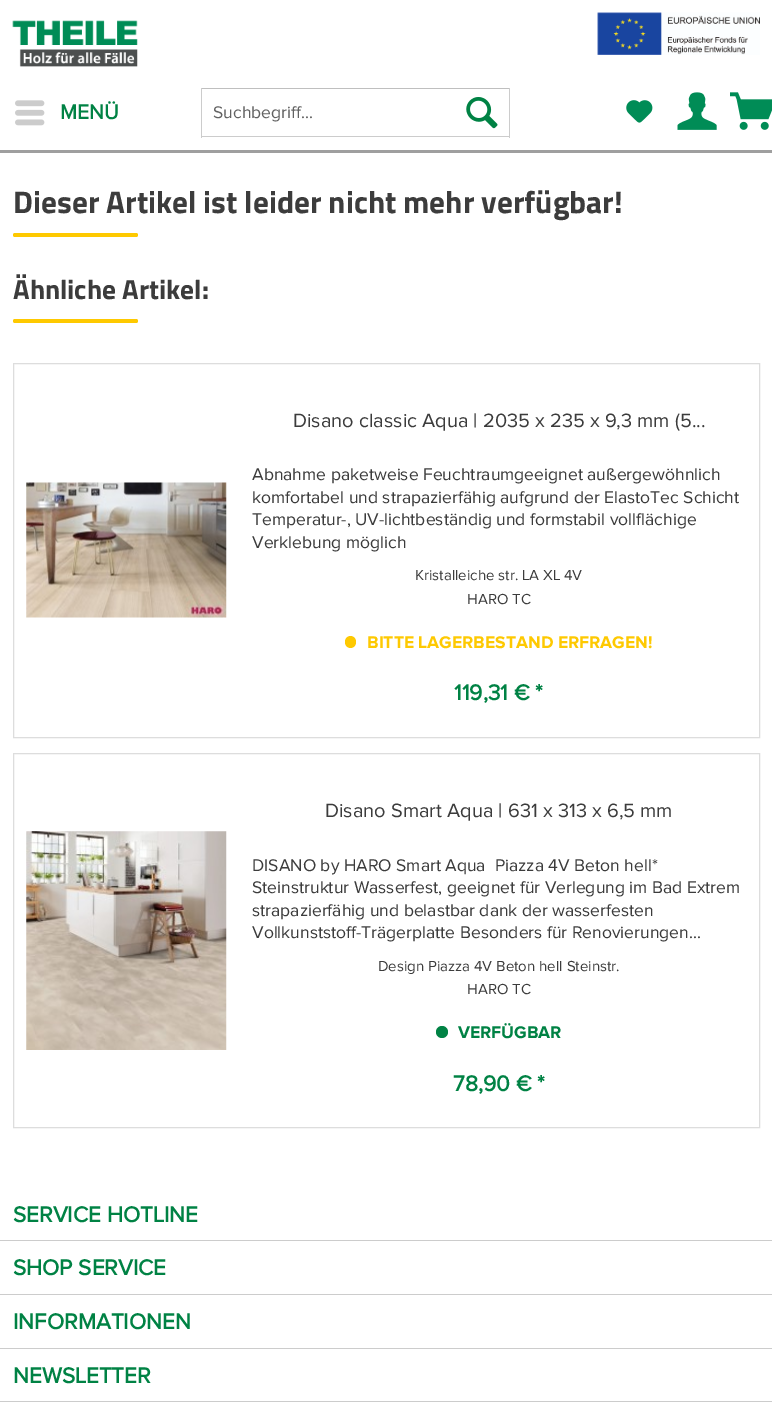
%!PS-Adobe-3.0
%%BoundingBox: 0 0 772 1409
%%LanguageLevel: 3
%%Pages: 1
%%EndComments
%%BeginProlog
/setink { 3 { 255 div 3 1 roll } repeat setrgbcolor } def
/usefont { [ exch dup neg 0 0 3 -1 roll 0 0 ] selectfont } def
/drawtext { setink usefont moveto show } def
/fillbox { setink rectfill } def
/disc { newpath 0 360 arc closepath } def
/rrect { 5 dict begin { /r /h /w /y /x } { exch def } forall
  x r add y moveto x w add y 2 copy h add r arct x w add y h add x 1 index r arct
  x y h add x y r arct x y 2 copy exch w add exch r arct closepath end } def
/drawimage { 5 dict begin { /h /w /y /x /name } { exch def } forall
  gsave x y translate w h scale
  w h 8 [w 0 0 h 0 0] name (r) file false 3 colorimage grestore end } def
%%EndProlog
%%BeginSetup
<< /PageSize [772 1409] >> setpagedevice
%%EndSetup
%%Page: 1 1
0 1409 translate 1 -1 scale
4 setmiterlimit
0 0 772 1409 255 255 255 fillbox
0 150 772 3 159 159 159 fillbox
(assets/img1.rgb) 12 20 126 47 drawimage
(assets/img2.rgb) 597 12 163 43 drawimage
(assets/img3.rgb) 15 100 30 26 drawimage
(MENÜ) 60 119 /ProximaNova-Bold 21 0 130 68 drawtext
201 88 309 1 191 191 191 fillbox
509 88 1 50 204 204 204 fillbox
201 136 309 1 204 204 204 fillbox
201 88 1 50 204 204 204 fillbox
(Suchbegriff...) 213 118 /ProximaNova-Regular 17.5 98 98 98 drawtext
(assets/img4.rgb) 466 97 32 32 drawimage
(assets/img5.rgb) 626 100 27 23 drawimage
(assets/img6.rgb) 677 92 40 38 drawimage
(assets/img7.rgb) 730 92 42 38 drawimage
(Dieser Artikel ist leider nicht mehr verfügbar!) 13 213 /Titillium-Bold 31.25 60 60 60 drawtext
254 201 0 setink
13 233 125 4 2 rrect fill
(Ähnliche Artikel:) 13 299 /Titillium-Bold 27.5 60 60 60 drawtext
254 201 0 setink
13 319 125 4 2 rrect fill
221 221 221 setink
13.5 363.5 746 374 rectstroke
(Disano classic Aqua | 2035 x 235 x 9,3 mm \(5...) 293 427 /ProximaNova-Regular 20 60 60 60 drawtext
(assets/img8.rgb) 26 482 201 136 drawimage
(Abnahme paketweise Feuchtraumgeeignet außergewöhnlich) 252 480 /ProximaNova-Regular 17.5 60 60 60 drawtext
(komfortabel und strapazierfähig aufgrund der ElastoTec Schicht) 252 503 /ProximaNova-Regular 17.5 60 60 60 drawtext
(Temperatur-, UV-lichtbeständig und formstabil vollflächige) 252 525 /ProximaNova-Regular 17.5 60 60 60 drawtext
(Verklebung möglich) 252 548 /ProximaNova-Regular 17.5 60 60 60 drawtext
(Kristalleiche str. LA XL 4V) 415 580 /ProximaNova-Regular 15 60 60 60 drawtext
(HARO TC) 467 604 /ProximaNova-Regular 15 60 60 60 drawtext
254 201 1 setink
345 636 11 12 5.5 rrect fill
(BITTE LAGERBESTAND ERFRAGEN!) 367 648 /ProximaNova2-Bold 17.5 254 201 1 drawtext
(119,31 € *) 454 700 /ProximaNova-Bold 22.5 0 130 68 drawtext
221 221 221 setink
13.5 753.5 746 374 rectstroke
(Disano Smart Aqua | 631 x 313 x 6,5 mm) 325 817 /ProximaNova-Regular 20 60 60 60 drawtext
(assets/img9.rgb) 26 831 201 219 drawimage
(DISANO by HARO Smart Aqua  Piazza 4V Beton hell*) 252 871 /ProximaNova-Regular 17.5 60 60 60 drawtext
(Steinstruktur Wasserfest, geeignet für Verlegung im Bad Extrem) 252 893 /ProximaNova-Regular 17.5 60 60 60 drawtext
(strapazierfähig und belastbar dank der wasserfesten) 252 916 /ProximaNova-Regular 17.5 60 60 60 drawtext
(Vollkunststoff-Trägerplatte Besonders für Renovierungen...) 252 938 /ProximaNova-Regular 17.5 60 60 60 drawtext
(Design Piazza 4V Beton hell Steinstr.) 378 971 /ProximaNova-Regular 15 60 60 60 drawtext
(HARO TC) 467 994 /ProximaNova-Regular 15 60 60 60 drawtext
0 130 68 setink
442 1032 6 disc fill
(VERFÜGBAR) 458 1038 /ProximaNova2-Bold 17.5 0 130 68 drawtext
(78,90 € *) 453 1091 /ProximaNova-Bold 22.5 0 130 68 drawtext
(SERVICE HOTLINE) 13 1222 /ProximaNova-Bold 22.5 0 130 68 drawtext
0 1240 772 1 204 204 204 fillbox
(SHOP SERVICE) 13 1275 /ProximaNova-Bold 22.5 0 130 68 drawtext
0 1294 772 1 204 204 204 fillbox
(INFORMATIONEN) 13 1329 /ProximaNova-Bold 22.5 0 130 68 drawtext
0 1348 772 1 204 204 204 fillbox
(NEWSLETTER) 13 1383 /ProximaNova-Bold 22.5 0 130 68 drawtext
0 1401 772 1 204 204 204 fillbox
showpage
%%EOF
